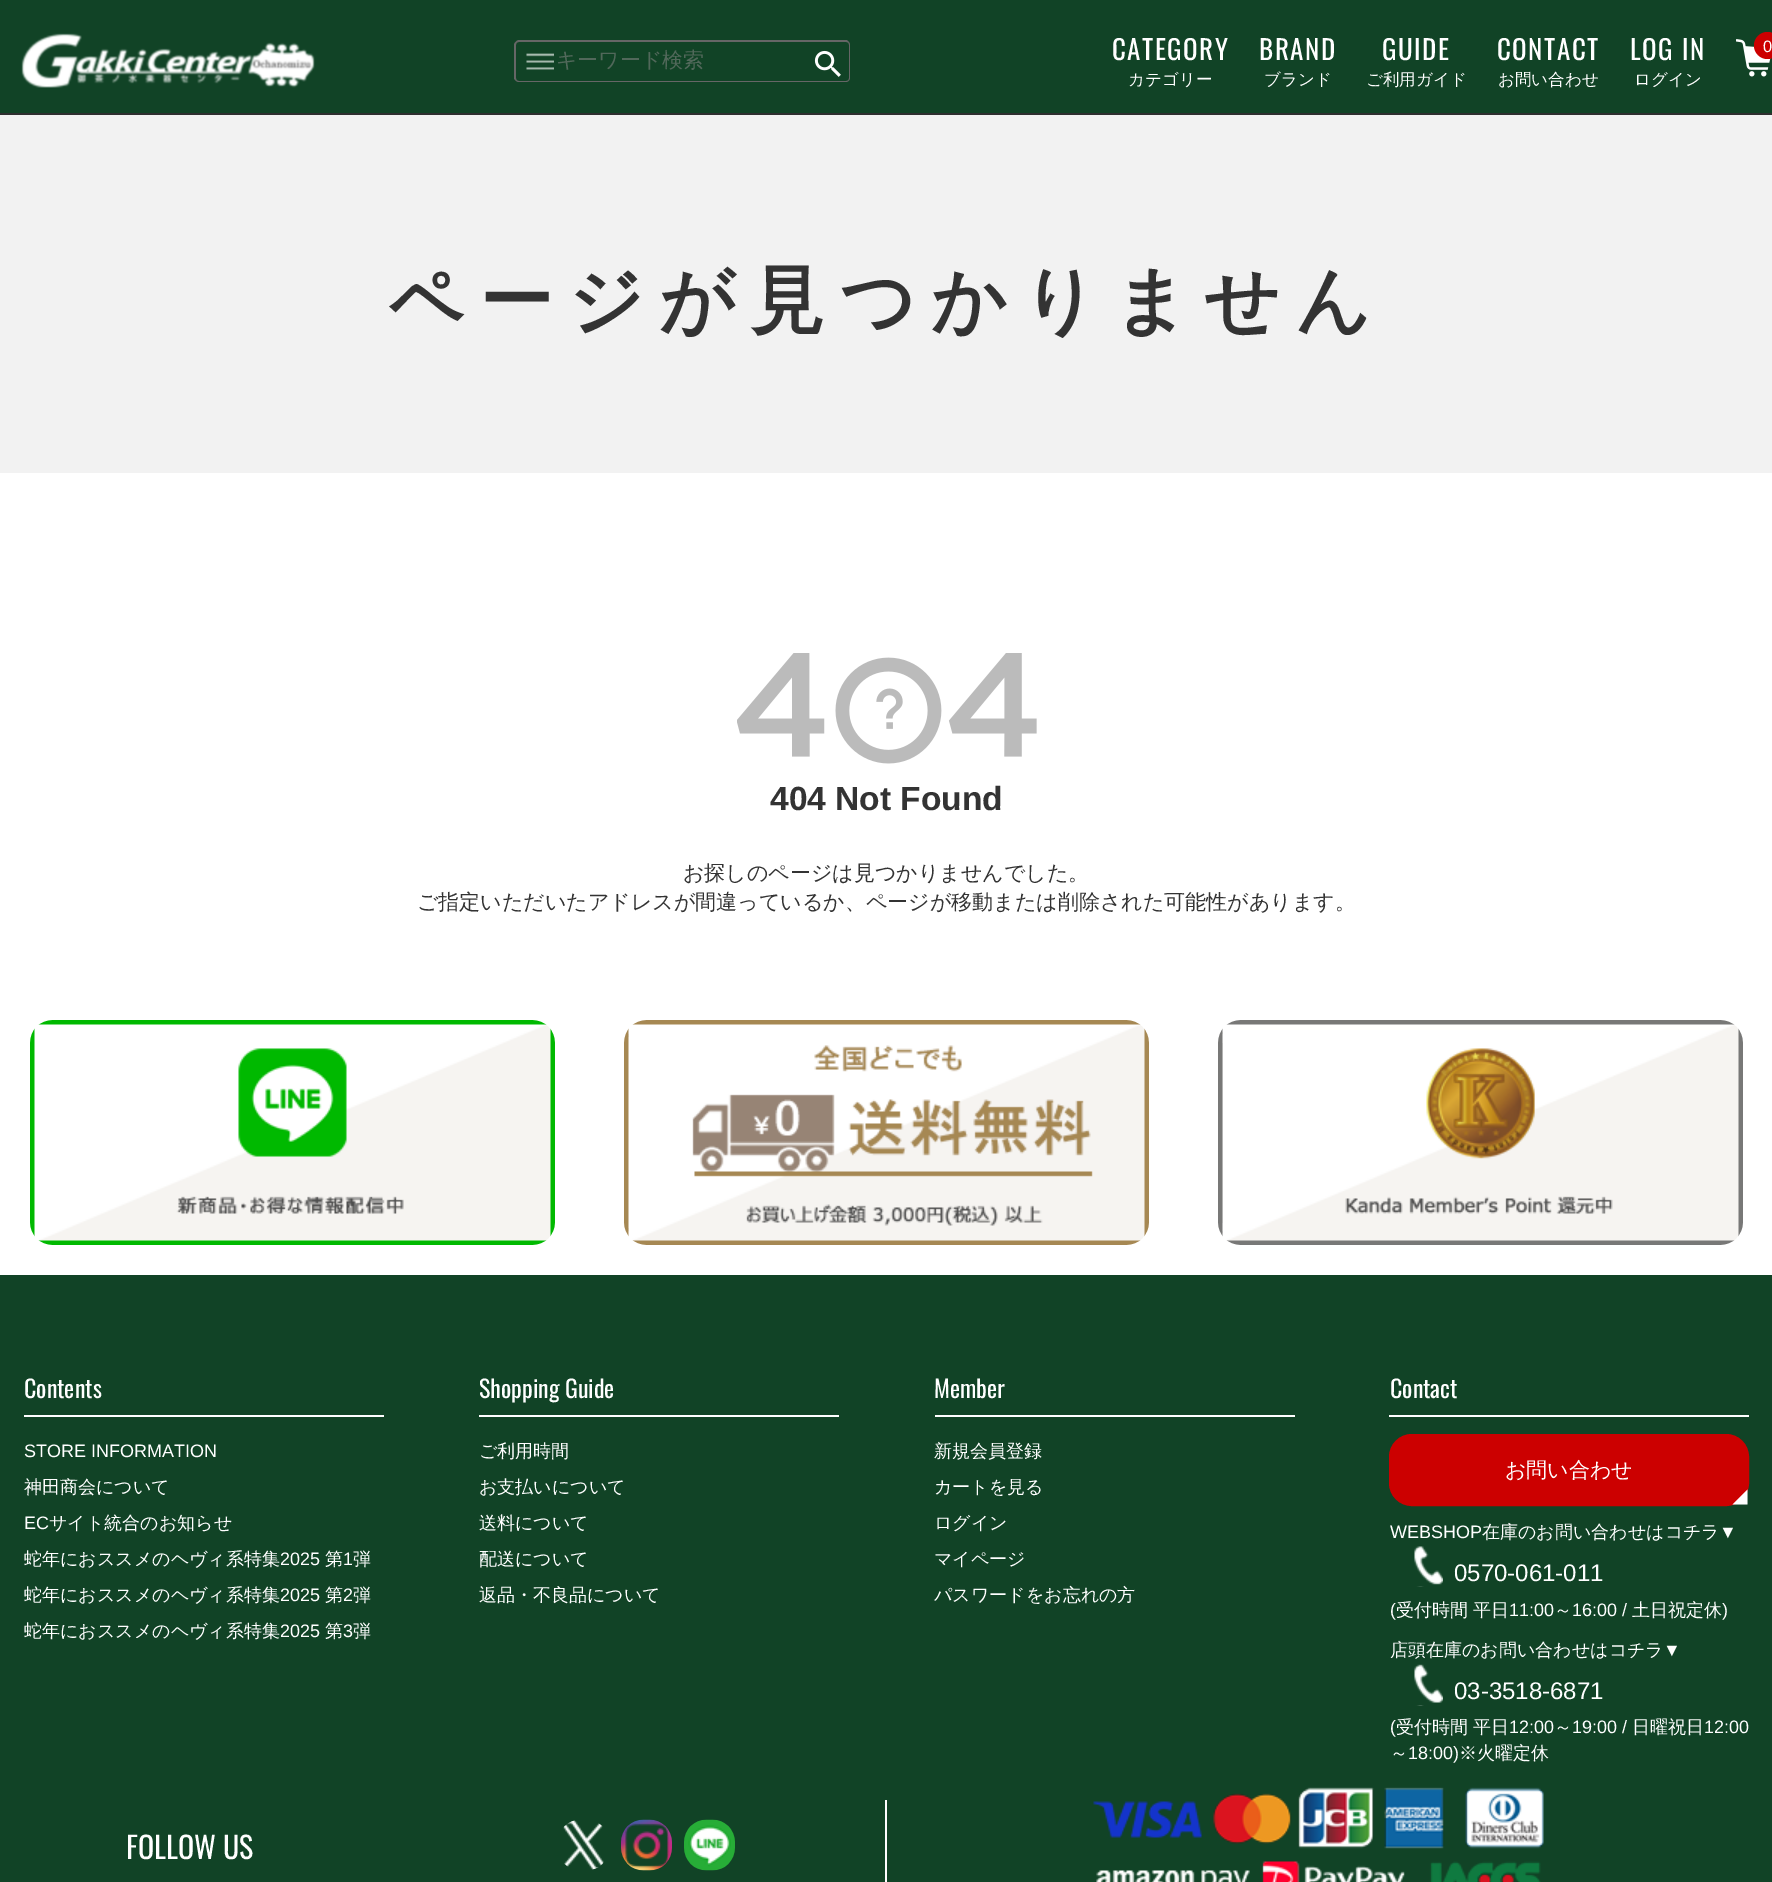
%!PS-Adobe-3.0
%%BoundingBox: 0 0 1772 1882
%%LanguageLevel: 3
%%Pages: 1
%%EndComments
%%BeginProlog
/setink { 3 { 255 div 3 1 roll } repeat setrgbcolor } def
/usefont { [ exch dup neg 0 0 3 -1 roll 0 0 ] selectfont } def
/drawtext { setink usefont moveto show } def
/fillbox { setink rectfill } def
/disc { newpath 0 360 arc closepath } def
/rrect { 5 dict begin { /r /h /w /y /x } { exch def } forall
  x r add y moveto x w add y 2 copy h add r arct x w add y h add x 1 index r arct
  x y h add x y r arct x y 2 copy exch w add exch r arct closepath end } def
/drawimage { 5 dict begin { /h /w /y /x /name } { exch def } forall
  gsave x y translate w h scale
  w h 8 [w 0 0 h 0 0] name (r) file false 3 colorimage grestore end } def
%%EndProlog
%%BeginSetup
<< /PageSize [1772 1882] >> setpagedevice
%%EndSetup
%%Page: 1 1
0 1882 translate 1 -1 scale
4 setmiterlimit
0 0 1772 1882 255 255 255 fillbox
0 0 1772 113 17 67 38 fillbox
0 113 1772 2 47 47 47 fillbox
(assets/img1.rgb) 21 33 294 55 drawimage
102 102 102 setink
519 40 moveto 806 40 lineto 806 82 lineto 519 82 lineto 517 82 514 80 514 78 curveto 514 45 lineto 514 43 517 40 519 40 curveto closepath 519 42 moveto 806 42 lineto 806 81 lineto 519 81 lineto 517 81 516 80 516 78 curveto 516 45 lineto 516 43 517 42 519 42 curveto closepath eofill
(assets/img2.rgb) 526 53 28 17 drawimage
(キーワード検索) 556 67 /WenQuanYiZenHei-Medium 21 81 104 90 drawtext
102 102 102 setink
806 40 moveto 846 40 lineto 848 40 850 43 850 45 curveto 850 78 lineto 850 80 848 82 846 82 curveto 806 82 lineto closepath 806 42 moveto 846 42 lineto 848 42 849 43 849 45 curveto 849 78 lineto 849 80 848 81 846 81 curveto 806 81 lineto closepath eofill
(assets/img3.rgb) 814 50 27 27 drawimage
/Oswald-Regular 27 usefont
255 255 255 setink
1112 60 moveto 1.5 0 (CATEGORY) ashow
(カテゴリー) 1128 85 /WenQuanYiZenHei-Medium 16.5 255 255 255 drawtext
/Oswald-Regular 27 usefont
1259 60 moveto 1.5 0 (BRAND) ashow
(ブランド) 1264 85 /WenQuanYiZenHei-Medium 16.5 255 255 255 drawtext
/Oswald-Regular 27 usefont
1382 60 moveto 1.5 0 (GUIDE) ashow
(ご利用ガイド) 1366 85 /WenQuanYiZenHei-Medium 16.5 255 255 255 drawtext
/Oswald-Regular 27 usefont
1497 60 moveto 1.5 0 (CONTACT) ashow
(お問い合わせ) 1498 85 /WenQuanYiZenHei-Medium 16.5 255 255 255 drawtext
/Oswald-Regular 27 usefont
1630 60 moveto 1.5 0 (LOG IN) ashow
(ログイン) 1634 85 /WenQuanYiZenHei-Medium 16.5 255 255 255 drawtext
(assets/img4.rgb) 1736 39 35 38 drawimage
204 0 0 setink
1767.5 45.5 13.5 disc fill
(0) 1763 52 /LiberationSans-Regular 16.5 255 255 255 drawtext
0 115 1772 358 242 242 242 fillbox
/WenQuanYiZenHei-Bold 74.4 usefont
51 51 51 setink
388 326 moveto 14.9 0 (ページが見つかりません) ashow
(assets/img5.rgb) 737 653 300 111 drawimage
(404 Not Found) 770 810 /LiberationSans-Bold 33.5 51 51 51 drawtext
(お探しのページは見つかりませんでした。) 683 880 /WenQuanYiZenHei-Medium 21 51 51 51 drawtext
(ご指定いただいたアドレスが間違っているか、ページが移動または削除された可能性があります。) 417 909 /WenQuanYiZenHei-Medium 21 51 51 51 drawtext
0 1275 1772 607 17 67 38 fillbox
(assets/img6.rgb) 30 1020 525 225 drawimage
(assets/img7.rgb) 624 1020 525 225 drawimage
(assets/img8.rgb) 1218 1020 525 225 drawimage
24 1415 360 2 255 255 255 fillbox
(Contents) 24 1398 /Oswald-Regular 24 255 255 255 drawtext
(STORE INFORMATION) 24 1457 /LiberationSans-Regular 18 255 255 255 drawtext
(神田商会について) 24 1493 /WenQuanYiZenHei-Medium 18 255 255 255 drawtext
(EC) 24 1529 /LiberationSans-Regular 18 255 255 255 drawtext
(サイト統合のお知らせ) 49 1529 /WenQuanYiZenHei-Medium 18 255 255 255 drawtext
(蛇年におススメのヘヴィ系特集) 24 1565 /WenQuanYiZenHei-Medium 18 255 255 255 drawtext
(2025) 280 1565 /LiberationSans-Regular 18 255 255 255 drawtext
(第) 325 1565 /WenQuanYiZenHei-Medium 18 255 255 255 drawtext
(1) 343 1565 /LiberationSans-Regular 18 255 255 255 drawtext
(弾) 353 1565 /WenQuanYiZenHei-Medium 18 255 255 255 drawtext
(蛇年におススメのヘヴィ系特集) 24 1601 /WenQuanYiZenHei-Medium 18 255 255 255 drawtext
(2025) 280 1601 /LiberationSans-Regular 18 255 255 255 drawtext
(第) 325 1601 /WenQuanYiZenHei-Medium 18 255 255 255 drawtext
(2) 343 1601 /LiberationSans-Regular 18 255 255 255 drawtext
(弾) 353 1601 /WenQuanYiZenHei-Medium 18 255 255 255 drawtext
(蛇年におススメのヘヴィ系特集) 24 1637 /WenQuanYiZenHei-Medium 18 255 255 255 drawtext
(2025) 280 1637 /LiberationSans-Regular 18 255 255 255 drawtext
(第) 325 1637 /WenQuanYiZenHei-Medium 18 255 255 255 drawtext
(3) 343 1637 /LiberationSans-Regular 18 255 255 255 drawtext
(弾) 353 1637 /WenQuanYiZenHei-Medium 18 255 255 255 drawtext
479 1415 360 2 255 255 255 fillbox
(Shopping Guide) 479 1398 /Oswald-Regular 24 255 255 255 drawtext
(ご利用時間) 479 1457 /WenQuanYiZenHei-Medium 18 255 255 255 drawtext
(お支払いについて) 479 1493 /WenQuanYiZenHei-Medium 18 255 255 255 drawtext
(送料について) 479 1529 /WenQuanYiZenHei-Medium 18 255 255 255 drawtext
(配送について) 479 1565 /WenQuanYiZenHei-Medium 18 255 255 255 drawtext
(返品・不良品について) 479 1601 /WenQuanYiZenHei-Medium 18 255 255 255 drawtext
935 1415 360 2 255 255 255 fillbox
(Member) 934 1398 /Oswald-Regular 24 255 255 255 drawtext
(新規会員登録) 934 1457 /WenQuanYiZenHei-Medium 18 255 255 255 drawtext
(カートを見る) 934 1493 /WenQuanYiZenHei-Medium 18 255 255 255 drawtext
(ログイン) 934 1529 /WenQuanYiZenHei-Medium 18 255 255 255 drawtext
(マイページ) 934 1565 /WenQuanYiZenHei-Medium 18 255 255 255 drawtext
(パスワードをお忘れの方) 934 1601 /WenQuanYiZenHei-Medium 18 255 255 255 drawtext
1389 1415 360 2 255 255 255 fillbox
(Contact) 1390 1398 /Oswald-Regular 24 255 255 255 drawtext
204 0 0 setink
1390 1435 358 70 22 rrect gsave fill grestore
2 setlinewidth
stroke
(お問い合わせ) 1505 1477 /WenQuanYiZenHei-Medium 21 255 255 255 drawtext
1747.5 1504.5 moveto 1732.5 1504.5 lineto 1747.5 1489.5 lineto closepath fill
(WEBSHOP) 1390 1538 /LiberationSans-Regular 18 255 255 255 drawtext
(在庫のお問い合わせはコチラ) 1482 1538 /WenQuanYiZenHei-Medium 18 255 255 255 drawtext
(▼) 1719 1538 /LiberationSans-Regular 18 255 255 255 drawtext
(assets/img9.rgb) 1414 1546 29 41 drawimage
(0570-061-011) 1454 1581 /LiberationSans-Regular 24 255 255 255 drawtext
(\() 1390 1616 /LiberationSans-Regular 18 255 255 255 drawtext
(受付時間) 1396 1616 /WenQuanYiZenHei-Medium 18 255 255 255 drawtext
(平日) 1473 1616 /WenQuanYiZenHei-Medium 18 255 255 255 drawtext
(11:00) 1509 1616 /LiberationSans-Regular 18 255 255 255 drawtext
(～) 1554 1616 /WenQuanYiZenHei-Medium 18 255 255 255 drawtext
(16:00 /) 1572 1616 /LiberationSans-Regular 18 255 255 255 drawtext
(土日祝定休) 1632 1616 /WenQuanYiZenHei-Medium 18 255 255 255 drawtext
(\)) 1722 1616 /LiberationSans-Regular 18 255 255 255 drawtext
(店頭在庫のお問い合わせはコチラ) 1390 1656 /WenQuanYiZenHei-Medium 18 255 255 255 drawtext
(▼) 1663 1656 /LiberationSans-Regular 18 255 255 255 drawtext
(assets/img10.rgb) 1414 1664 29 42 drawimage
(03-3518-6871) 1454 1699 /LiberationSans-Regular 24 255 255 255 drawtext
(\() 1390 1733 /LiberationSans-Regular 18 255 255 255 drawtext
(受付時間) 1396 1733 /WenQuanYiZenHei-Medium 18 255 255 255 drawtext
(平日) 1473 1733 /WenQuanYiZenHei-Medium 18 255 255 255 drawtext
(12:00) 1509 1733 /LiberationSans-Regular 18 255 255 255 drawtext
(～) 1554 1733 /WenQuanYiZenHei-Medium 18 255 255 255 drawtext
(19:00 /) 1572 1733 /LiberationSans-Regular 18 255 255 255 drawtext
(日曜祝日) 1632 1733 /WenQuanYiZenHei-Medium 18 255 255 255 drawtext
(12:00) 1704 1733 /LiberationSans-Regular 18 255 255 255 drawtext
(～) 1390 1759 /WenQuanYiZenHei-Medium 18 255 255 255 drawtext
(18:00\)) 1408 1759 /LiberationSans-Regular 18 255 255 255 drawtext
(※火曜定休) 1459 1759 /WenQuanYiZenHei-Medium 18 255 255 255 drawtext
885 1800 2 82 255 255 255 fillbox
(FOLLOW US) 126 1859 /Oswald-Regular 30 255 255 255 drawtext
(assets/img11.rgb) 563 1820 41 50 drawimage
(assets/img12.rgb) 621 1819 51 52 drawimage
(assets/img13.rgb) 684 1819 51 52 drawimage
(assets/img14.rgb) 1093 1787 451 95 drawimage
showpage
%%EOF
